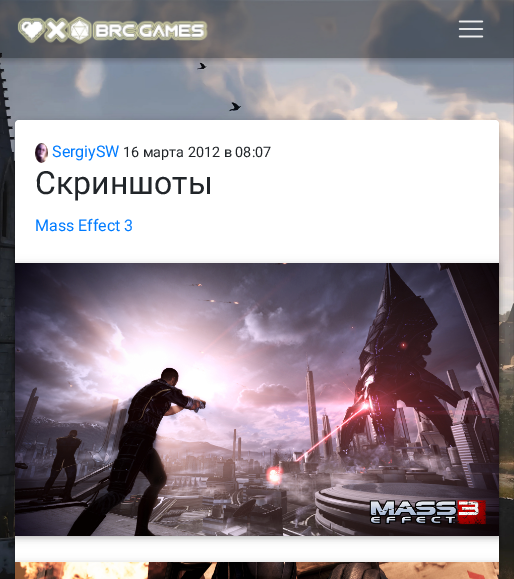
%!PS-Adobe-3.0
%%BoundingBox: 0 0 514 579
%%LanguageLevel: 3
%%Pages: 1
%%EndComments
%%BeginProlog
/setink { 3 { 255 div 3 1 roll } repeat setrgbcolor } def
/usefont { [ exch dup neg 0 0 3 -1 roll 0 0 ] selectfont } def
/drawtext { setink usefont moveto show } def
/fillbox { setink rectfill } def
/setalpha { dup .setfillconstantalpha .setstrokeconstantalpha } def
/rrect { 5 dict begin { /r /h /w /y /x } { exch def } forall
  x r add y moveto x w add y 2 copy h add r arct x w add y h add x 1 index r arct
  x y h add x y r arct x y 2 copy exch w add exch r arct closepath end } def
/softshadow { 12 dict begin { /a /b /q /h /w /y /x } { exch def } forall gsave /was 0 def
  9 -2 -9 { dup b mul 4 div /e exch def 1 sub .425 mul 2.718 exch exp 1 add a .99 .min exch div /now exch def
    1 1 now sub 1 was sub div sub setalpha /was now def
    w h .min e 2 mul add 0 gt { x e sub y e sub w e 2 mul add h e 2 mul add
      q e add b .6 mul add w h .min 2 div e add .min 0 .max rrect fill } if } for grestore end } def
/drawimage { 5 dict begin { /h /w /y /x /name } { exch def } forall
  gsave x y translate w h scale
  w h 8 [w 0 0 h 0 0] name (r) file false 3 colorimage grestore end } def
%%EndProlog
%%BeginSetup
<< /PageSize [514 579] /PageUsesTransparency true >> setpagedevice
%%EndSetup
%%Page: 1 1
0 .pushpdf14devicefilter
0 579 translate 1 -1 scale
4 setmiterlimit
0 0 514 579 255 255 255 fillbox
(assets/img1.rgb) 0 0 514 579 drawimage
gsave
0 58 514 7 rectclip
0 0 0 setink
0 2 514 58 0 5 0.12 softshadow
grestore
gsave
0 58 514 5 rectclip
0 0 0 setink
0 2 514 58 0 2.5 0.16 softshadow
grestore
0.4 setalpha
0 0 514 58 0 0 0 fillbox
1 setalpha
(assets/img2.rgb) 17 16 191 29 drawimage
(assets/img3.rgb) 458 20 26 18 drawimage
15 122 484 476 4 5 0.12 softshadow
15 122 484 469 4 2.5 0.16 softshadow
255 255 255 setink
15 120 484 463 4 rrect fill
(assets/img4.rgb) 35 143 13 20 drawimage
(SergiySW) 52 157 /Roboto-Regular 16 0 123 255 drawtext
(16 марта 2012 в 08:07) 123 157 /Roboto-Regular 14.4 33 37 41 drawtext
(Скриншоты) 35 194 /Roboto-Regular 32 33 37 41 drawtext
(Mass Effect 3) 35 231 /Roboto-Regular 16 0 123 255 drawtext
0 0 0 setink
15 265 484 273 0 5 0.12 softshadow
15 265 484 273 0 2.5 0.16 softshadow
(assets/img5.rgb) 15 263 484 273 drawimage
15 564 484 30 0 5 0.12 softshadow
15 564 484 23 0 2.5 0.16 softshadow
(assets/img6.rgb) 15 562 484 17 drawimage
.poppdf14devicefilter showpage
%%EOF
